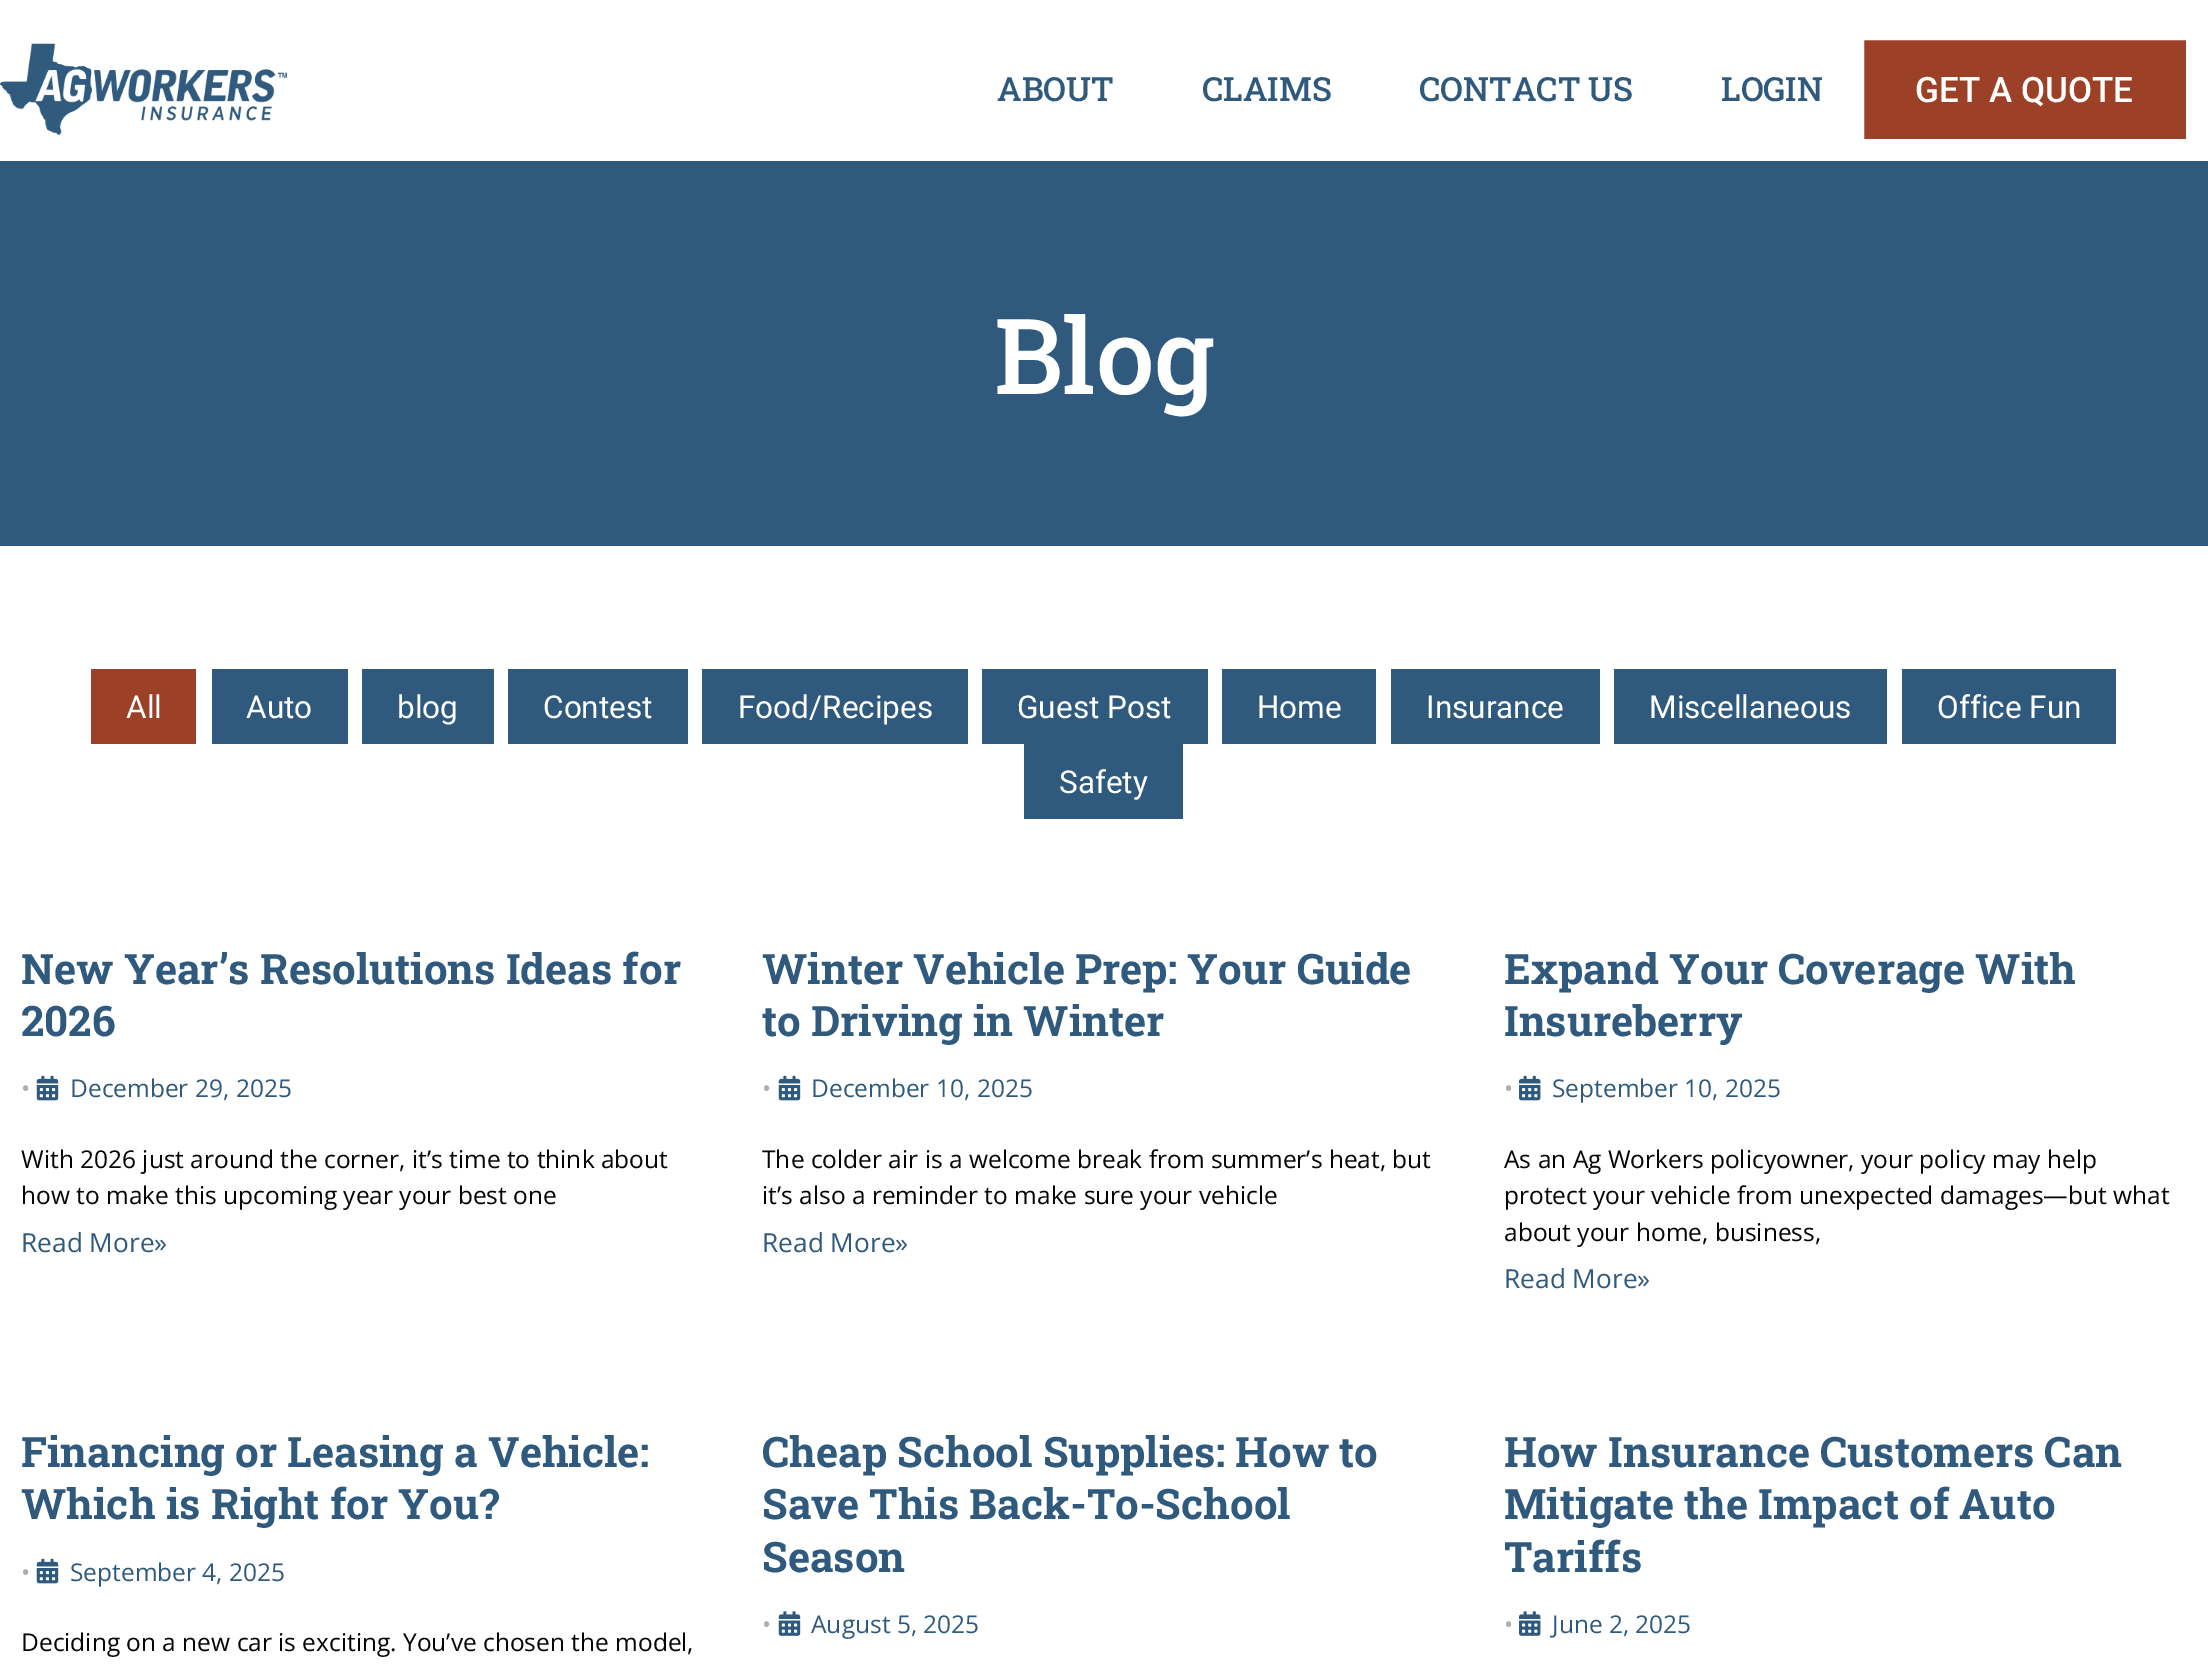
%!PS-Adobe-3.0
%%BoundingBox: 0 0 2208 1669
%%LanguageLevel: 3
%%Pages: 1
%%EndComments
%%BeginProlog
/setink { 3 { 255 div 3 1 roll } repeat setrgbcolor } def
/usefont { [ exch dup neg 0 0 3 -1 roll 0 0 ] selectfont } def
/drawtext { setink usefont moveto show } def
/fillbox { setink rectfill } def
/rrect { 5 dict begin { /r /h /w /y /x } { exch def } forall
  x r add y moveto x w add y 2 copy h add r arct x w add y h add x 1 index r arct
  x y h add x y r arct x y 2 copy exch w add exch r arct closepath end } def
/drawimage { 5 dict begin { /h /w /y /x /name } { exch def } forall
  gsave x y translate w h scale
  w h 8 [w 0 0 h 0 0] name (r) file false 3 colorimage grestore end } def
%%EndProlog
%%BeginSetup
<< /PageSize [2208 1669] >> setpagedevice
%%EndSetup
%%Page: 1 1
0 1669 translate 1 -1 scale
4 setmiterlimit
0 0 2208 1669 255 255 255 fillbox
(assets/img1.rgb) 0 43 287 92 drawimage
(ABOUT) 997 101 /RobotoSlab-Medium 33.25 47 90 125 drawtext
(CLAIMS) 1202 101 /RobotoSlab-Medium 33.25 47 90 125 drawtext
(CONTACT US) 1419 101 /RobotoSlab-Medium 33.25 47 90 125 drawtext
(LOGIN) 1721 101 /RobotoSlab-Medium 33.25 47 90 125 drawtext
156 65 39 setink
1861.5 37.5 327 104 2.5 rrect gsave fill grestore
255 255 255 setink
5 setlinewidth
stroke
(GET A QUOTE) 1915 102 /Roboto-Medium 35 255 255 255 drawtext
0 161 2208 385 47 90 125 fillbox
(Blog) 994 394 /RobotoSlab-Medium 105 255 255 255 drawtext
91 669 105 75 156 65 39 fillbox
(All) 126 718 /Roboto-Regular 31.5 255 255 255 drawtext
212 669 136 75 47 90 125 fillbox
(Auto) 246 718 /Roboto-Regular 31.5 255 255 255 drawtext
362 669 132 75 47 90 125 fillbox
(blog) 397 718 /Roboto-Regular 31.5 255 255 255 drawtext
508 669 180 75 47 90 125 fillbox
(Contest) 543 718 /Roboto-Regular 31.5 255 255 255 drawtext
702 669 266 75 47 90 125 fillbox
(Food/Recipes) 738 718 /Roboto-Regular 31.5 255 255 255 drawtext
982 669 226 75 47 90 125 fillbox
(Guest Post) 1017 718 /Roboto-Regular 31.5 255 255 255 drawtext
1222 669 154 75 47 90 125 fillbox
(Home) 1257 718 /Roboto-Regular 31.5 255 255 255 drawtext
1391 669 209 75 47 90 125 fillbox
(Insurance) 1426 718 /Roboto-Regular 31.5 255 255 255 drawtext
1614 669 273 75 47 90 125 fillbox
(Miscellaneous) 1649 718 /Roboto-Regular 31.5 255 255 255 drawtext
1902 669 214 75 47 90 125 fillbox
(Office Fun) 1937 718 /Roboto-Regular 31.5 255 255 255 drawtext
1024 744 159 75 47 90 125 fillbox
(Safety) 1059 793 /Roboto-Regular 31.5 255 255 255 drawtext
(New Year’s Resolutions Ideas for) 21 984 /RobotoSlab-Bold 42 47 90 125 drawtext
(2026) 21 1036 /RobotoSlab-Bold 42 47 90 125 drawtext
(•) 21 1097 /OpenSans-Regular 24.5 173 173 173 drawtext
(assets/img2.rgb) 36 1075 23 26 drawimage
(December 29, 2025) 70 1097 /OpenSans-Regular 24.5 47 90 125 drawtext
(With 2026 just around the corner, it’s time to think about) 21 1168 /OpenSans-Regular 24.5 4 4 4 drawtext
(how to make this upcoming year your best one) 21 1204 /OpenSans-Regular 24.5 4 4 4 drawtext
(Read More») 21 1252 /OpenSans-Regular 26.25 47 90 125 drawtext
(Winter Vehicle Prep: Your Guide) 762 984 /RobotoSlab-Bold 42 47 90 125 drawtext
(to Driving in Winter) 762 1036 /RobotoSlab-Bold 42 47 90 125 drawtext
(•) 762 1097 /OpenSans-Regular 24.5 173 173 173 drawtext
(assets/img2.rgb) 778 1075 23 26 drawimage
(December 10, 2025) 811 1097 /OpenSans-Regular 24.5 47 90 125 drawtext
(The colder air is a welcome break from summer’s heat, but) 762 1168 /OpenSans-Regular 24.5 4 4 4 drawtext
(it’s also a reminder to make sure your vehicle) 762 1204 /OpenSans-Regular 24.5 4 4 4 drawtext
(Read More») 762 1252 /OpenSans-Regular 26.25 47 90 125 drawtext
(Expand Your Coverage With) 1504 984 /RobotoSlab-Bold 42 47 90 125 drawtext
(Insureberry) 1504 1036 /RobotoSlab-Bold 42 47 90 125 drawtext
(•) 1504 1097 /OpenSans-Regular 24.5 173 173 173 drawtext
(assets/img3.rgb) 1519 1075 22 26 drawimage
(September 10, 2025) 1552 1097 /OpenSans-Regular 24.5 47 90 125 drawtext
(As an Ag Workers policyowner, your policy may help) 1504 1168 /OpenSans-Regular 24.5 4 4 4 drawtext
(protect your vehicle from unexpected damages—but what) 1504 1204 /OpenSans-Regular 24.5 4 4 4 drawtext
(about your home, business,) 1504 1241 /OpenSans-Regular 24.5 4 4 4 drawtext
(Read More») 1504 1288 /OpenSans-Regular 26.25 47 90 125 drawtext
(Financing or Leasing a Vehicle:) 21 1467 /RobotoSlab-Bold 42 47 90 125 drawtext
(Which is Right for You?) 21 1519 /RobotoSlab-Bold 42 47 90 125 drawtext
(•) 21 1581 /OpenSans-Regular 24.5 173 173 173 drawtext
(assets/img2.rgb) 36 1558 23 26 drawimage
(September 4, 2025) 70 1581 /OpenSans-Regular 24.5 47 90 125 drawtext
(Deciding on a new car is exciting. You’ve chosen the model,) 21 1651 /OpenSans-Regular 24.5 4 4 4 drawtext
(Cheap School Supplies: How to) 762 1467 /RobotoSlab-Bold 42 47 90 125 drawtext
(Save This Back-To-School) 762 1519 /RobotoSlab-Bold 42 47 90 125 drawtext
(Season) 762 1572 /RobotoSlab-Bold 42 47 90 125 drawtext
(•) 762 1633 /OpenSans-Regular 24.5 173 173 173 drawtext
(assets/img4.rgb) 778 1611 23 25 drawimage
(August 5, 2025) 811 1633 /OpenSans-Regular 24.5 47 90 125 drawtext
(How Insurance Customers Can) 1504 1467 /RobotoSlab-Bold 42 47 90 125 drawtext
(Mitigate the Impact of Auto) 1504 1519 /RobotoSlab-Bold 42 47 90 125 drawtext
(Tariffs) 1504 1572 /RobotoSlab-Bold 42 47 90 125 drawtext
(•) 1504 1633 /OpenSans-Regular 24.5 173 173 173 drawtext
(assets/img5.rgb) 1519 1611 22 25 drawimage
(June 2, 2025) 1552 1633 /OpenSans-Regular 24.5 47 90 125 drawtext
showpage
%%EOF
